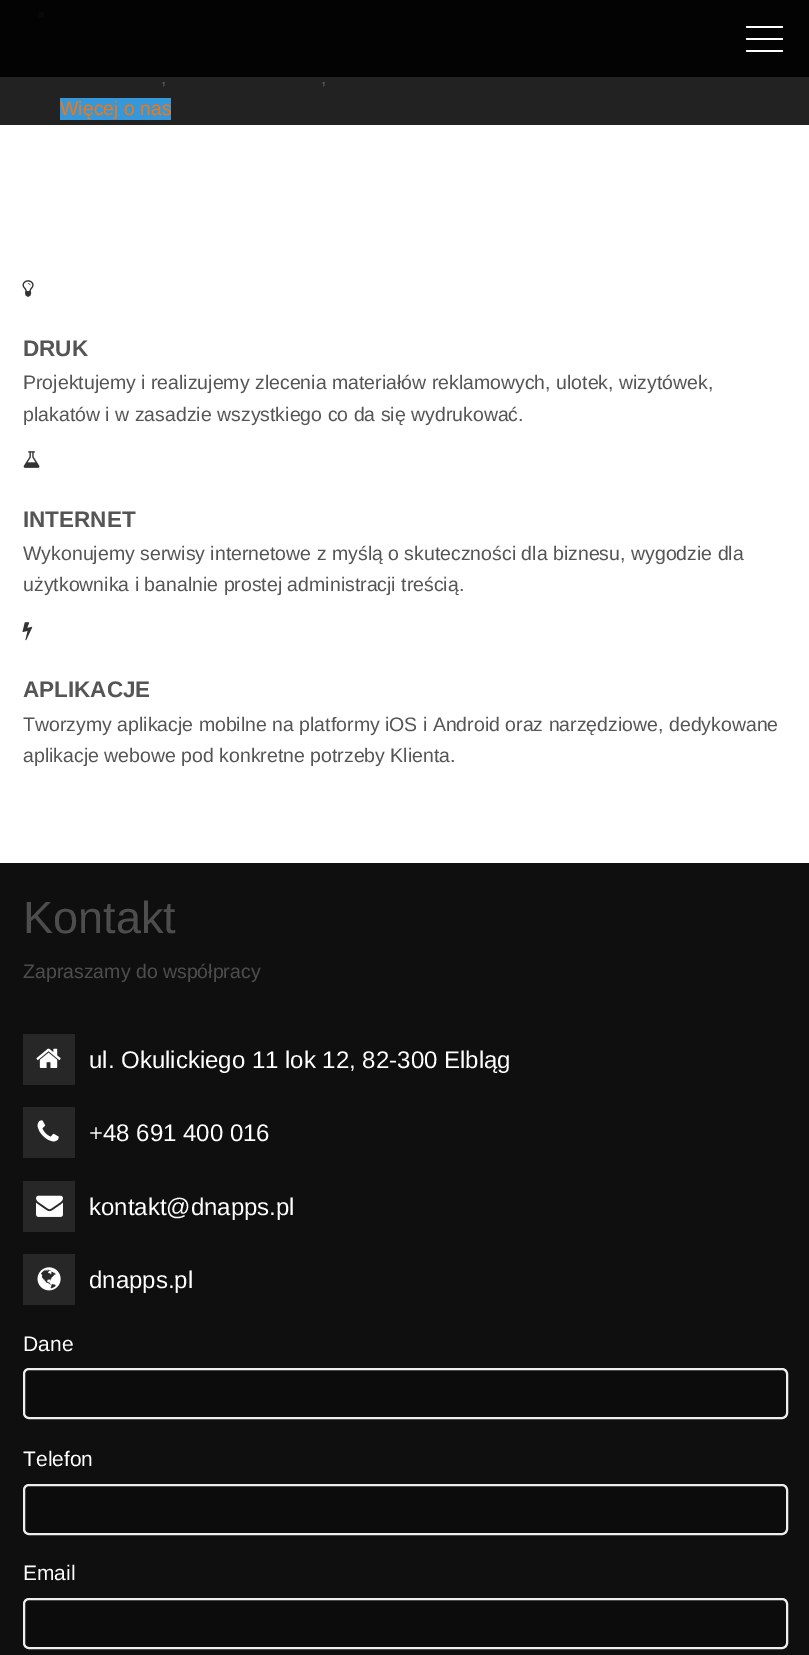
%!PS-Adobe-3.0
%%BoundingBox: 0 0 809 1655
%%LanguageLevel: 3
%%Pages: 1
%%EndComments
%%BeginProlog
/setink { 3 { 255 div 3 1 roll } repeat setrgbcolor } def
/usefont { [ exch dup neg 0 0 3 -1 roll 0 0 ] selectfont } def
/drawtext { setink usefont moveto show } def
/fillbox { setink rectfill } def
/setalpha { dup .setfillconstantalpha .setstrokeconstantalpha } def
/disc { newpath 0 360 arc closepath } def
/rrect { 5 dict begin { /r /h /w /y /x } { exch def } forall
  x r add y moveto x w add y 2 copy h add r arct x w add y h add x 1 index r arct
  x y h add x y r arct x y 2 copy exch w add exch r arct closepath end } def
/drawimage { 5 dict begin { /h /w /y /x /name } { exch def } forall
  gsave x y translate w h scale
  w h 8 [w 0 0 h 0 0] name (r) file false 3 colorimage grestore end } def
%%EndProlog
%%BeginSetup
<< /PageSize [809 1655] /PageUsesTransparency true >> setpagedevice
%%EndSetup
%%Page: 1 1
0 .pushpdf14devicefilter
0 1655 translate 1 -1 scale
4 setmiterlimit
0 0 809 1655 255 255 255 fillbox
0 0 809 125 34 34 34 fillbox
85 85 85 setink
41 15 3 disc fill
0.9 setalpha
0 0 809 77 0 0 0 fillbox
1 setalpha
255 255 255 setink
746 26 37 2 1 rrect fill
746 38 37 2 1 rrect fill
746 50 37 2 1 rrect fill
(,) 161 84 /LiberationSans-Regular 19.5 85 85 85 drawtext
(,) 321 84 /LiberationSans-Regular 19.5 85 85 85 drawtext
60 98 111 22 52 152 219 fillbox
(Więcej o nas) 60 115 /LiberationSans-Regular 19.5 255 115 2 drawtext
(assets/img1.rgb) 22 280 12 17 drawimage
(DRUK) 23 356 /LiberationSans-Bold 22.5 85 85 85 drawtext
(Projektujemy i realizujemy zlecenia materiałów reklamowych, ulotek, wizytówek,) 23 389 /LiberationSans-Regular 19.5 85 85 85 drawtext
(plakatów i w zasadzie wszystkiego co da się wydrukować.) 23 421 /LiberationSans-Regular 19.5 85 85 85 drawtext
(assets/img2.rgb) 23 451 17 17 drawimage
(INTERNET) 23 527 /LiberationSans-Bold 22.5 85 85 85 drawtext
(Wykonujemy serwisy internetowe z myślą o skuteczności dla biznesu, wygodzie dla) 23 560 /LiberationSans-Regular 19.5 85 85 85 drawtext
(użytkownika i banalnie prostej administracji treścią.) 23 591 /LiberationSans-Regular 19.5 85 85 85 drawtext
(assets/img3.rgb) 22 622 11 19 drawimage
(APLIKACJE) 23 697 /LiberationSans-Bold 22.5 85 85 85 drawtext
(Tworzymy aplikacje mobilne na platformy iOS i Android oraz narzędziowe, dedykowane) 23 731 /LiberationSans-Regular 19.5 85 85 85 drawtext
(aplikacje webowe pod konkretne potrzeby Klienta.) 23 762 /LiberationSans-Regular 19.5 85 85 85 drawtext
0 863 809 792 15 15 15 fillbox
(Kontakt) 23 933 /LiberationSans-Regular 45 77 77 77 drawtext
(Zapraszamy do współpracy) 23 978 /LiberationSans-Regular 19.5 77 77 77 drawtext
23 1034 52 51 39 39 39 fillbox
(assets/img4.rgb) 36 1048 25 20 drawimage
(ul. Okulickiego 11 lok 12, 82-300 Elbląg) 89 1068 /LiberationSans-Regular 24 255 255 255 drawtext
23 1107 52 51 39 39 39 fillbox
(assets/img5.rgb) 37 1120 22 22 drawimage
(+48 691 400 016) 89 1141 /LiberationSans-Regular 24 255 255 255 drawtext
23 1181 52 51 39 39 39 fillbox
(assets/img6.rgb) 36 1195 27 22 drawimage
(kontakt@dnapps.pl) 89 1215 /LiberationSans-Regular 24 255 255 255 drawtext
23 1254 52 51 39 39 39 fillbox
(assets/img7.rgb) 37 1267 24 24 drawimage
(dnapps.pl) 89 1288 /LiberationSans-Regular 24 255 255 255 drawtext
(Dane) 23 1351 /LiberationSans-Regular 21 255 255 255 drawtext
12 12 12 setink
24 1369 763 49 5 rrect gsave fill grestore
238 238 238 setink
2 setlinewidth
stroke
(Telefon) 23 1466 /LiberationSans-Regular 21 255 255 255 drawtext
12 12 12 setink
24 1485 763 49 5 rrect gsave fill grestore
238 238 238 setink
stroke
(Email) 23 1580 /LiberationSans-Regular 21 255 255 255 drawtext
12 12 12 setink
24 1599 763 49 5 rrect gsave fill grestore
238 238 238 setink
stroke
.poppdf14devicefilter showpage
%%EOF
